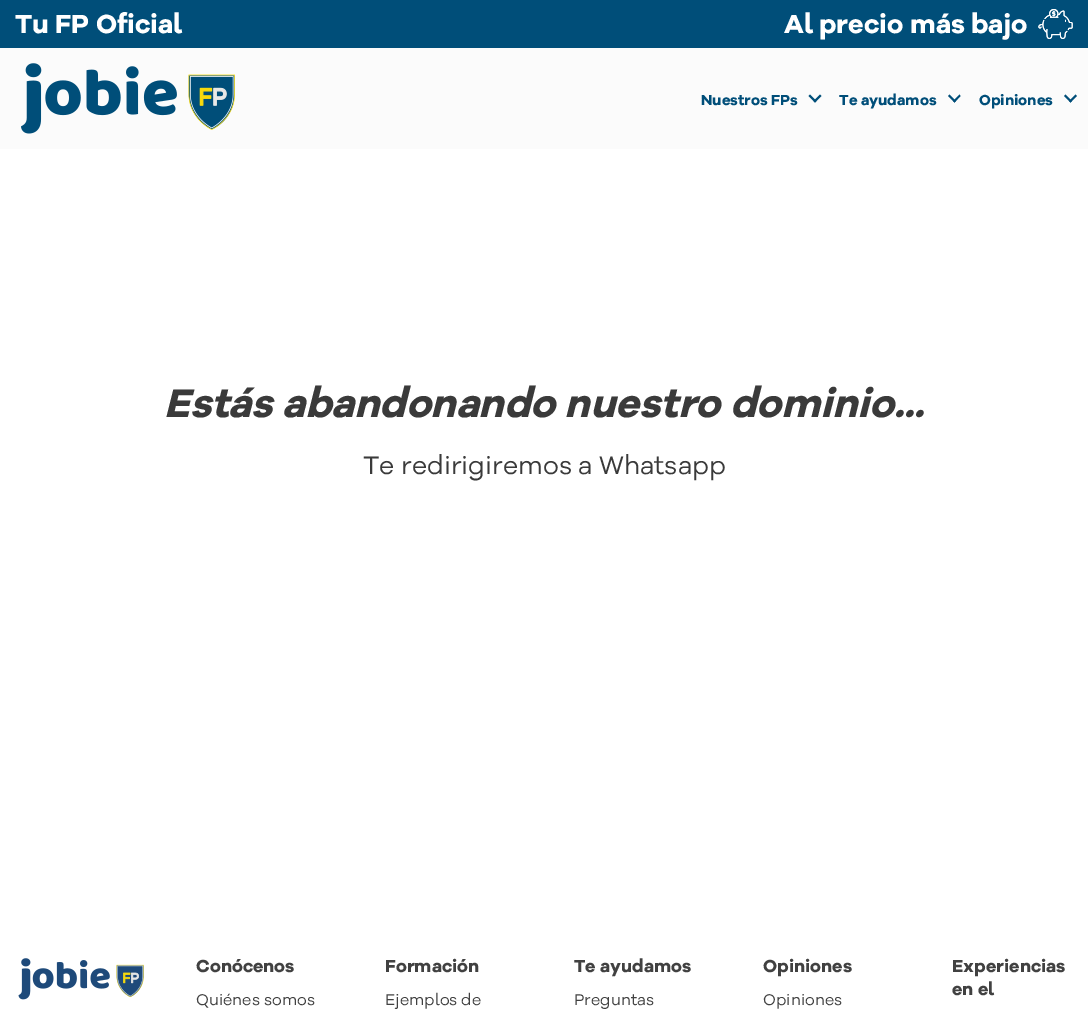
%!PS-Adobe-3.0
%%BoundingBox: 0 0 1088 1012
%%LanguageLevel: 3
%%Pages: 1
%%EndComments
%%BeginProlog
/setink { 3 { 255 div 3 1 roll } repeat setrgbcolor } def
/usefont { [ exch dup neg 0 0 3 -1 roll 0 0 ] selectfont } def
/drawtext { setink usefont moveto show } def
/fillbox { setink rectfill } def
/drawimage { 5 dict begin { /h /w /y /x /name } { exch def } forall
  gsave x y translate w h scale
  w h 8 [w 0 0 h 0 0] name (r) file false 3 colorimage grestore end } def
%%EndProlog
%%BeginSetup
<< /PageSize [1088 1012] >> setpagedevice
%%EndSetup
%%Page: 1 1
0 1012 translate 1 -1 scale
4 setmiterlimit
0 0 1088 1012 255 255 255 fillbox
0 0 1088 48 0 78 121 fillbox
(Tu FP Oficial) 15 33 /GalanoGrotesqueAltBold-Bold 27 255 255 255 drawtext
(assets/img1.rgb) 1038 9 35 30 drawimage
(Al precio más bajo) 784 33 /GalanoGrotesqueAltBold-Bold 27 255 255 255 drawtext
(assets/img2.rgb) 1038 9 35 30 drawimage
0 48 1088 101 251 251 251 fillbox
(assets/img3.rgb) 21 63 214 71 drawimage
(Nuestros FPs) 701 105 /GalanoGrotesqueAltBold-Bold 15 0 78 121 drawtext
813.5 101 moveto 820 94.5 lineto 821.5 96 lineto 815 102.5 lineto closepath fill
808.5 96 moveto 810 94.5 lineto 816.5 101 lineto 815 102.5 lineto closepath fill
(Te ayudamos) 839 105 /GalanoGrotesqueAltBold-Bold 15 0 78 121 drawtext
953 101 moveto 959.5 94.5 lineto 960.5 96 lineto 954.5 102.5 lineto closepath fill
948 96 moveto 949.5 94.5 lineto 956 101 lineto 954.5 102.5 lineto closepath fill
(Opiniones) 979 105 /GalanoGrotesqueAltBold-Bold 15 0 78 121 drawtext
1069 101 moveto 1075.5 94.5 lineto 1077 96 lineto 1070.5 102.5 lineto closepath fill
1064 96 moveto 1065.5 94.5 lineto 1072 101 lineto 1070.5 102.5 lineto closepath fill
(Estás abandonando nuestro dominio...) 164 417 /GalanoGrotesqueAltBold-BoldItalic 41 58 58 58 drawtext
(Te redirigiremos a Whatsapp) 363 474 /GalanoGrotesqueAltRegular-Regular 26 58 58 58 drawtext
(assets/img4.rgb) 18 958 126 42 drawimage
(Conócenos) 196 972 /GalanoGrotesqueAltBold-Bold 18 65 65 65 drawtext
(Quiénes somos) 196 1005 /GalanoGrotesqueAltRegular-Regular 16 65 65 65 drawtext
(Formación) 385 972 /GalanoGrotesqueAltBold-Bold 18 65 65 65 drawtext
(Ejemplos de) 385 1005 /GalanoGrotesqueAltRegular-Regular 16 65 65 65 drawtext
(Te ayudamos) 574 972 /GalanoGrotesqueAltBold-Bold 18 65 65 65 drawtext
(Preguntas) 574 1005 /GalanoGrotesqueAltRegular-Regular 16 65 65 65 drawtext
(Opiniones) 763 972 /GalanoGrotesqueAltBold-Bold 18 65 65 65 drawtext
(Opiniones) 763 1005 /GalanoGrotesqueAltRegular-Regular 16 65 65 65 drawtext
(Experiencias) 952 972 /GalanoGrotesqueAltBold-Bold 18 65 65 65 drawtext
(en el) 952 995 /GalanoGrotesqueAltBold-Bold 18 65 65 65 drawtext
showpage
%%EOF
